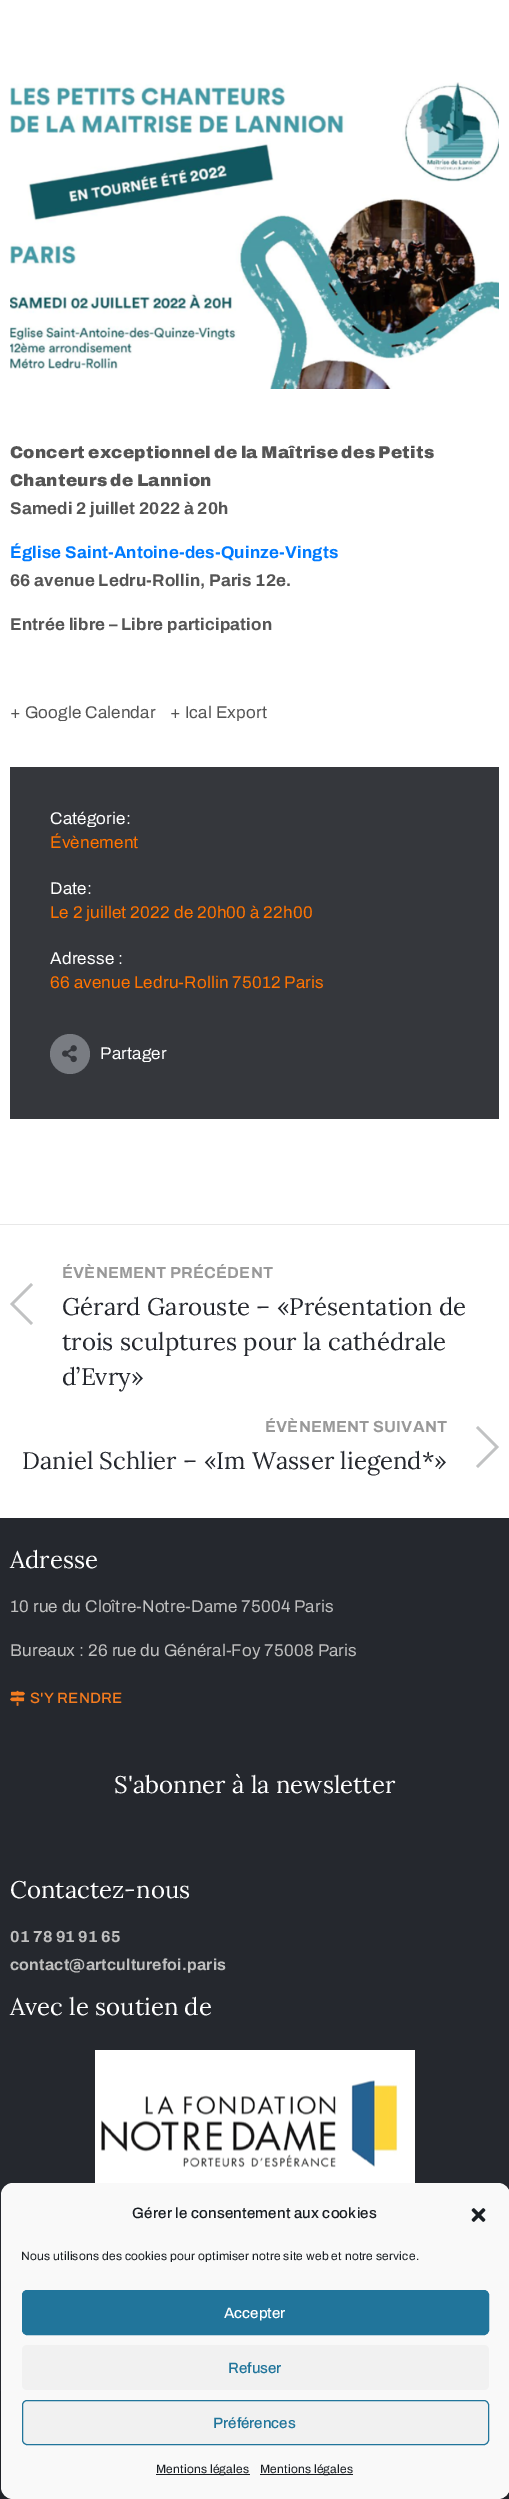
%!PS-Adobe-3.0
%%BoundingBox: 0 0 509 2499
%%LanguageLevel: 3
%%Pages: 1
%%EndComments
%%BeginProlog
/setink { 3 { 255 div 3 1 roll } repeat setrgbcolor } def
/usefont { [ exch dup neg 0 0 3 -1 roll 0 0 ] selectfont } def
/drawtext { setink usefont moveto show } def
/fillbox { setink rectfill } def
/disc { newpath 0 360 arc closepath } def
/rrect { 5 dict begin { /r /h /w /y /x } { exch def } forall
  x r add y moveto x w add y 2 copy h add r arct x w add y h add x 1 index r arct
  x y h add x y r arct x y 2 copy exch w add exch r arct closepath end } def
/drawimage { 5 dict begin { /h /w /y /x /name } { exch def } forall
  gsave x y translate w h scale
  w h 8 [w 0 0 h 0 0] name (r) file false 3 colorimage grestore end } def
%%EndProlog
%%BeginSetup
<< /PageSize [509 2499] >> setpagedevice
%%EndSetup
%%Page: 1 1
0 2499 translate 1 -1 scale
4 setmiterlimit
0 0 509 2499 255 255 255 fillbox
(assets/img1.rgb) 10 82 489 307 drawimage
/Archivo-Black 17 usefont
85 85 85 setink
10 458 moveto 0.2 0 (Concert exceptionnel de la Maîtrise des Petits) ashow
10 486 moveto 0.2 0 (Chanteurs de Lannion) ashow
/Archivo-Bold 17 usefont
10 514 moveto 0.2 0 (Samedi 2 juillet 2022 à 20h) ashow
0 123 255 setink
10 558 moveto 0.2 0 (Église Saint-Antoine-des-Quinze-Vingts) ashow
85 85 85 setink
10 586 moveto 0.2 0 (66 avenue Ledru-Rollin, Paris 12e.) ashow
10 630 moveto 0.2 0 (Entrée libre – Libre participation) ashow
/Archivo-Regular 17 usefont
10 718 moveto 0.2 0 (+ Google Calendar) ashow
170 718 moveto 0.2 0 (+ Ical Export) ashow
10 767 489 352 53 55 60 fillbox
255 255 255 setink
50 824 moveto 0.2 0 (Catégorie:) ashow
255 115 1 setink
50 848 moveto 0.2 0 (Évènement) ashow
255 255 255 setink
50 894 moveto 0.2 0 (Date:) ashow
255 115 1 setink
50 918 moveto 0.2 0 (Le 2 juillet 2022 de 20h00 à 22h00) ashow
255 255 255 setink
50 964 moveto 0.2 0 (Adresse :) ashow
255 115 1 setink
50 988 moveto 0.2 0 (66 avenue Ledru-Rollin 75012 Paris) ashow
121 124 130 setink
70 1054 20 disc fill
(assets/img2.rgb) 62 1045 15 18 drawimage
255 255 255 setink
100 1059 moveto 0.2 0 (Partager) ashow
0 1224 509 1 232 232 232 fillbox
/Archivo-Bold 16 usefont
153 153 153 setink
62 1278 moveto 0.2 0 (ÉVÈNEMENT PRÉCÉDENT) ashow
193 194 195 setink
14 1304 moveto 33 1323 lineto 31 1325 lineto 10 1304 lineto 31 1283 lineto 33 1285 lineto closepath fill
(Gérard Garouste – «Présentation de) 62 1315 /Lora-Regular 24 37 40 46 drawtext
(trois sculptures pour la cathédrale) 62 1350 /Lora-Regular 24 37 40 46 drawtext
(d’Evry») 62 1385 /Lora-Regular 24 37 40 46 drawtext
/Archivo-Bold 16 usefont
153 153 153 setink
265 1432 moveto 0.2 0 (ÉVÈNEMENT SUIVANT) ashow
193 194 195 setink
499 1447 moveto 478 1468 lineto 476 1466 lineto 495 1447 lineto 476 1428 lineto 478 1426 lineto closepath fill
(Daniel Schlier – «Im Wasser liegend*») 22 1469 /Lora-Regular 24 37 40 46 drawtext
0 1518 509 873 37 40 46 fillbox
(Adresse) 10 1568 /Lora-Regular 24 255 255 255 drawtext
/Archivo-Regular 17 usefont
191 191 191 setink
10 1612 moveto 0.2 0 (10 rue du Cloître-Notre-Dame 75004 Paris) ashow
10 1656 moveto 0.2 0 (Bureaux : 26 rue du Général-Foy 75008 Paris) ashow
(assets/img3.rgb) 10 1690 15 16 drawimage
/Archivo-Medium 15 usefont
243 123 31 setink
30 1703 moveto 0.2 0 (S'Y RENDRE) ashow
(S'abonner à la newsletter) 114 1793 /Lora-Regular 24 255 255 255 drawtext
(Contactez-nous) 10 1898 /Lora-Regular 24 255 255 255 drawtext
/Archivo-Bold 16 usefont
191 191 191 setink
10 1942 moveto 0.2 0 (01 78 91 91 65) ashow
10 1970 moveto 0.2 0 (contact@artculturefoi.paris) ashow
(Avec le soutien de) 10 2015 /Lora-Regular 24 255 255 255 drawtext
(assets/img4.rgb) 95 2050 320 133 drawimage
0 2391 509 108 33 35 41 fillbox
249 249 249 setink
1.5 2183.5 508 315 11.5 rrect gsave fill grestore
stroke
/Archivo-Medium 15 usefont
25 30 35 setink
132 2218 moveto 0.2 0 (Gérer le consentement aux cookies) ashow
(assets/img5.rgb) 471 2208 15 14 drawimage
/Archivo-Regular 12 usefont
21 2260 moveto 0.2 0 (Nous utilisons des cookies pour optimiser notre site web et notre service.) ashow
33 117 155 setink
22.5 2290.5 466 44 4.5 rrect gsave fill grestore
stroke
(Accepter) 224 2318 /Archivo-Medium 15 255 255 255 drawtext
241 241 241 setink
22 2345 467 45 5 rrect fill
(Refuser) 228 2373 /Archivo-Medium 15 33 117 155 drawtext
241 241 241 setink
22.5 2400.5 466 44 4.5 rrect gsave fill grestore
33 117 155 setink
stroke
(Préférences) 213 2428 /Archivo-Medium 15 33 117 155 drawtext
156 2474 94 1 25 30 35 fillbox
/Archivo-Regular 12 usefont
156 2473 moveto 0.2 0 (Mentions légales) ashow
260 2474 93 1 25 30 35 fillbox
260 2473 moveto 0.2 0 (Mentions légales) ashow
showpage
%%EOF
